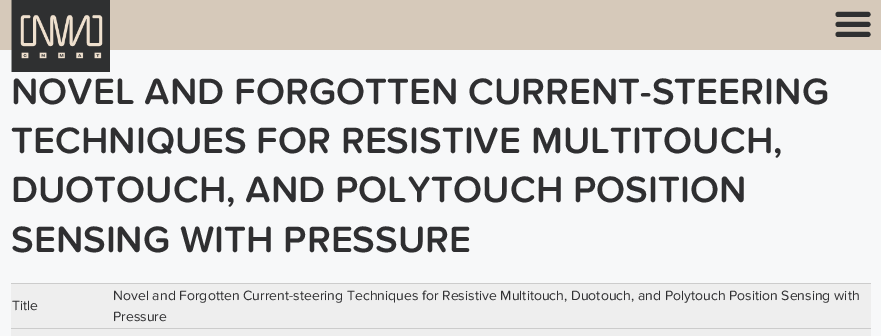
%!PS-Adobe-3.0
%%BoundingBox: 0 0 881 336
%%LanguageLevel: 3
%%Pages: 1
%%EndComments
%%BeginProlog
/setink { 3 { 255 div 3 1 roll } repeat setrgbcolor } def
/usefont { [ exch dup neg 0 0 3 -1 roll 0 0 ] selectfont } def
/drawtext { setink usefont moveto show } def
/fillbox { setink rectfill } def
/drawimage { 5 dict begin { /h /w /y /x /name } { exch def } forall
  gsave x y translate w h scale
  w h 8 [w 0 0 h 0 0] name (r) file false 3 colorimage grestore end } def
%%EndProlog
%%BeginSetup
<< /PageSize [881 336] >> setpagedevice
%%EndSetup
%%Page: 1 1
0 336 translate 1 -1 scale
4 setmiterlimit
0 0 881 336 247 248 249 fillbox
0 0 881 50 214 201 186 fillbox
(assets/img1.rgb) 835 11 36 26 drawimage
(assets/img2.rgb) 11 0 99 72 drawimage
(NOVEL AND FORGOTTEN CURRENT-STEERING) 11 104 /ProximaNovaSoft-SemiBold 38 47 47 49 drawtext
(TECHNIQUES FOR RESISTIVE MULTITOUCH,) 11 153 /ProximaNovaSoft-SemiBold 38 47 47 49 drawtext
(DUOTOUCH, AND POLYTOUCH POSITION) 11 202 /ProximaNovaSoft-SemiBold 38 47 47 49 drawtext
(SENSING WITH PRESSURE) 11 252 /ProximaNovaSoft-SemiBold 38 47 47 49 drawtext
11 283 860 1 204 204 204 fillbox
11 284 860 44 238 238 238 fillbox
11 328 860 1 204 204 204 fillbox
(Title) 12 310 /ProximaNovaSoft-Regular 14 47 47 49 drawtext
(Novel and Forgotten Current-steering Techniques for Resistive Multitouch, Duotouch, and Polytouch Position Sensing with) 113 300 /ProximaNovaSoft-Regular 14 47 47 49 drawtext
(Pressure) 113 321 /ProximaNovaSoft-Regular 14 47 47 49 drawtext
11 329 860 7 238 238 238 fillbox
showpage
%%EOF
